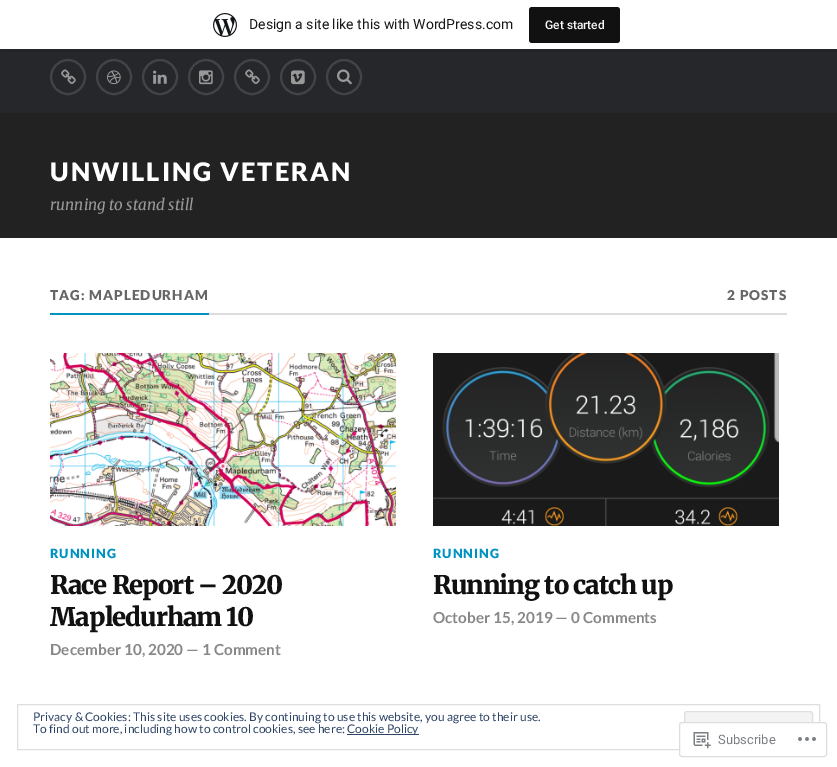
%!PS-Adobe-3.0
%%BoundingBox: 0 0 837 767
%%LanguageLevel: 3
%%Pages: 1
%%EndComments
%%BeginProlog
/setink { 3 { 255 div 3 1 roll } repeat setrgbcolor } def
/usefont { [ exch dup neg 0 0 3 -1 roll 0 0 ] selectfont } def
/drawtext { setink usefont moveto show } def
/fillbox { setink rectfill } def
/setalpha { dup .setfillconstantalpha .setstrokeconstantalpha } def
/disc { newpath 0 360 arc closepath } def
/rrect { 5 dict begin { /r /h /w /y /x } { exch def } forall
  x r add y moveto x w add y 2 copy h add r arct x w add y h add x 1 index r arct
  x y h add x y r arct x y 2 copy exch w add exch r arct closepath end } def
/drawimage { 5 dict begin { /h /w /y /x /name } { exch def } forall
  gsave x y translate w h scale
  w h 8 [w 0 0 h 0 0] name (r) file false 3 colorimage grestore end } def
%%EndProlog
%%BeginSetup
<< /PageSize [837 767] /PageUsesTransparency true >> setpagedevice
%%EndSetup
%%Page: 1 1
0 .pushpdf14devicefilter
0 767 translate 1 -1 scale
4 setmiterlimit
0 0 837 767 255 255 255 fillbox
0 49 837 64 38 39 43 fillbox
35 36 40 setink
1 49 moveto 1 52 lineto 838 52 lineto 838 3 lineto 837 3 lineto 837 49 lineto closepath fill
(assets/img1.rgb) 213 13 24 24 drawimage
(Design a site like this with WordPress.com) 249 29 /Roboto-Regular 14 23 23 23 drawtext
17 17 17 setink
529 7 91 36 3 rrect fill
(Get started) 545 29 /Roboto-Medium 12 246 247 247 drawtext
66 68 74 setink
2 setlinewidth
68 77 17 disc stroke
(assets/img2.rgb) 61 69 15 15 drawimage
114 77 17 disc stroke
(assets/img3.rgb) 107 70 14 15 drawimage
160 77 17 disc stroke
(assets/img4.rgb) 153 70 14 14 drawimage
206 77 17 disc stroke
(assets/img5.rgb) 199 70 14 15 drawimage
252 77 17 disc stroke
(assets/img2.rgb) 245 69 15 15 drawimage
298 77 17 disc stroke
(assets/img6.rgb) 291 70 14 15 drawimage
344 77 17 disc stroke
(assets/img7.rgb) 337 69 15 16 drawimage
0 113 837 125 34 34 34 fillbox
/Lato-Black 25.5 usefont
255 255 255 setink
50 181 moveto 2 0 (UNWILLING VETERAN) ashow
(running to stand still) 50 210 /Merriweather-LightItalic 15.25 153 153 153 drawtext
209 313 578 2 221 221 221 fillbox
50 313 159 2 0 147 194 fillbox
/Lato-Black 13.6 usefont
102 102 102 setink
50 300 moveto 1 0 (TAG: MAPLEDURHAM) ashow
727 300 moveto 1 0 (2 POSTS) ashow
(assets/img8.rgb) 50 353 346 173 drawimage
/Lato-Black 12.75 usefont
0 147 194 setink
50 558 moveto 1 0 (RUNNING) ashow
/Merriweather-Black 25.5 usefont
17 17 17 setink
50 594 moveto -1 0 (Race Report – 2020) ashow
50 626 moveto -1 0 (Mapledurham 10) ashow
(December 10, 2020 — 1 Comment) 50 655 /Lato-Bold 15.25 136 136 136 drawtext
(assets/img9.rgb) 433 353 346 173 drawimage
/Lato-Black 12.75 usefont
0 147 194 setink
433 558 moveto 1 0 (RUNNING) ashow
/Merriweather-Black 25.5 usefont
17 17 17 setink
433 594 moveto -1 0 (Running to catch up) ashow
(October 15, 2019 — 0 Comments) 433 623 /Lato-Bold 15.25 136 136 136 drawtext
222 222 222 setink
1 setlinewidth
17.5 704.5 802 45 rectstroke
(Privacy & Cookies: This site uses cookies. By continuing to use this website, you agree to their use.) 33 721 /Lato-Regular 12 46 68 103 drawtext
243 243 243 setink
684.5 711.5 128 31 2.5 rrect gsave fill grestore
222 222 222 setink
stroke
(To find out more, including how to control cookies, see here:) 33 733 /Lato-Regular 12 46 68 103 drawtext
347 734 72 1 46 68 103 fillbox
(Cookie Policy) 347 733 /Lato-Regular 12 46 68 103 drawtext
0.98 setalpha
255 255 255 setink
679 722 148 35 3 rrect fill
220 220 222 setink
679.5 722.5 147 34 2.5 rrect stroke
1 setalpha
(assets/img10.rgb) 693 732 18 17 drawimage
(Subscribe) 718 744 /Roboto-Regular 13 123 127 132 drawtext
(assets/img11.rgb) 798 737 18 4 drawimage
.poppdf14devicefilter showpage
%%EOF
